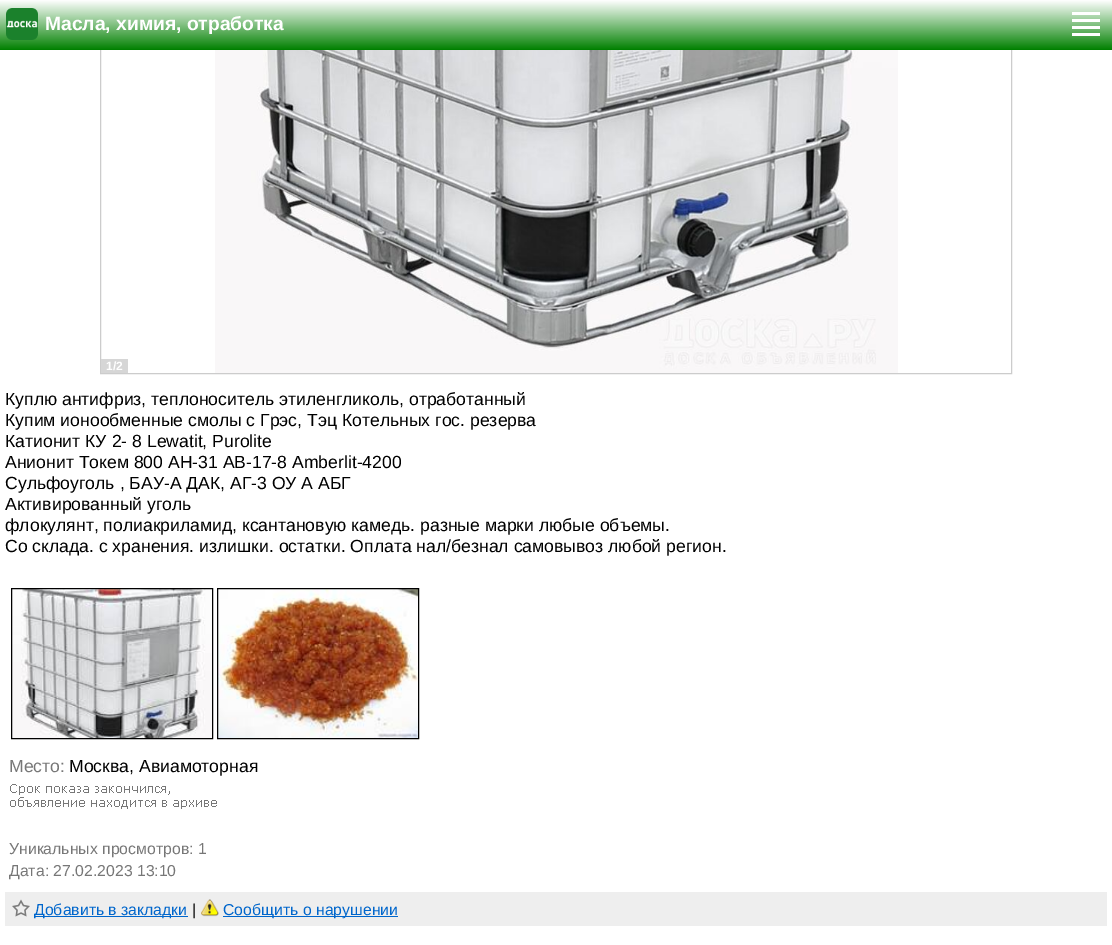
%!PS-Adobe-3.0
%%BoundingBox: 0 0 1112 945
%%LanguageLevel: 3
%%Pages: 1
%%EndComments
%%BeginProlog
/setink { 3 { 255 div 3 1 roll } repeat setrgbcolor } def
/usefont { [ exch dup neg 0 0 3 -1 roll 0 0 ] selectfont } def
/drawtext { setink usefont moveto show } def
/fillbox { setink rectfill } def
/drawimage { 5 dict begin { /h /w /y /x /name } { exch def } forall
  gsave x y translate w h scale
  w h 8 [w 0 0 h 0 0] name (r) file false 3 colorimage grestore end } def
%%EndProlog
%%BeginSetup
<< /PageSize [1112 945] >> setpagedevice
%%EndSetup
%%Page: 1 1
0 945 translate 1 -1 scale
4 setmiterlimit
0 0 1112 945 255 255 255 fillbox
204 204 204 setink
100.5 -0.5 911 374 rectstroke
gsave 0 0 moveto 1112 0 lineto 1112 50 lineto 0 50 lineto closepath clip newpath
<< /ShadingType 2 /ColorSpace /DeviceRGB /Coords [556 0 556 50] /Extend [true true] /Function << /FunctionType 2 /Domain [0 1] /C0 [1 1 1] /C1 [0 0.502 0] /N 1 >> >> shfill grestore
(assets/img1.rgb) 6 8 32 32 drawimage
(Масла, химия, отработка) 45 30 /LiberationSans-Bold 19.25 255 255 255 drawtext
(assets/img2.rgb) 1072 12 28 24 drawimage
101 359 27 14 214 214 214 fillbox
(1/2) 106 370 /LiberationSans-Bold 12 255 255 255 drawtext
(assets/img3.rgb) 215 50 683 323 drawimage
(Куплю антифриз, теплоноситель этиленгликоль, отработанный) 5 405 /LiberationSans-Regular 17.6 0 0 0 drawtext
(Купим ионообменные смолы с Грэс, Тэц Котельных гос. резерва) 5 426 /LiberationSans-Regular 17.6 0 0 0 drawtext
(Катионит КУ 2- 8 Lewatit, Purolite) 5 447 /LiberationSans-Regular 17.6 0 0 0 drawtext
(Анионит Токем 800 АН-31 АВ-17-8 Amberlit-4200) 5 468 /LiberationSans-Regular 17.6 0 0 0 drawtext
(Сульфоуголь , БАУ-А ДАК, АГ-3 ОУ А АБГ) 5 489 /LiberationSans-Regular 17.6 0 0 0 drawtext
(Активированный уголь) 5 510 /LiberationSans-Regular 17.6 0 0 0 drawtext
(флокулянт, полиакриламид, ксантановую камедь. разные марки любые объемы.) 5 531 /LiberationSans-Regular 17.6 0 0 0 drawtext
(Со склада. с хранения. излишки. остатки. Оплата нал/безнал самовывоз любой регион.) 5 552 /LiberationSans-Regular 17.6 0 0 0 drawtext
(assets/img4.rgb) 12 589 200 149 drawimage
11.5 588.5 201 150 rectstroke
(assets/img5.rgb) 218 589 200 149 drawimage
217.5 588.5 201 150 rectstroke
(Место:) 9 772 /LiberationSans-Regular 17.6 119 119 119 drawtext
(Москва, Авиамоторная) 69 772 /LiberationSans-Regular 17.6 0 0 0 drawtext
(assets/img6.rgb) 10 784 207 25 drawimage
(Уникальных просмотров: 1) 9 854 /LiberationSans-Regular 15.8 119 119 119 drawtext
(Дата: 27.02.2023 13:10) 9 876 /LiberationSans-Regular 15.8 119 119 119 drawtext
5 892 1102 34 238 238 238 fillbox
(assets/img7.rgb) 12 899 18 18 drawimage
34 916 154 1 0 102 204 fillbox
(Добавить в закладки) 34 915 /LiberationSans-Regular 15.8 0 102 204 drawtext
(|) 192 915 /LiberationSans-Regular 15.8 0 0 0 drawtext
(assets/img8.rgb) 201 899 18 18 drawimage
223 916 175 1 0 102 204 fillbox
(Сообщить о нарушении) 223 915 /LiberationSans-Regular 15.8 0 102 204 drawtext
showpage
%%EOF
